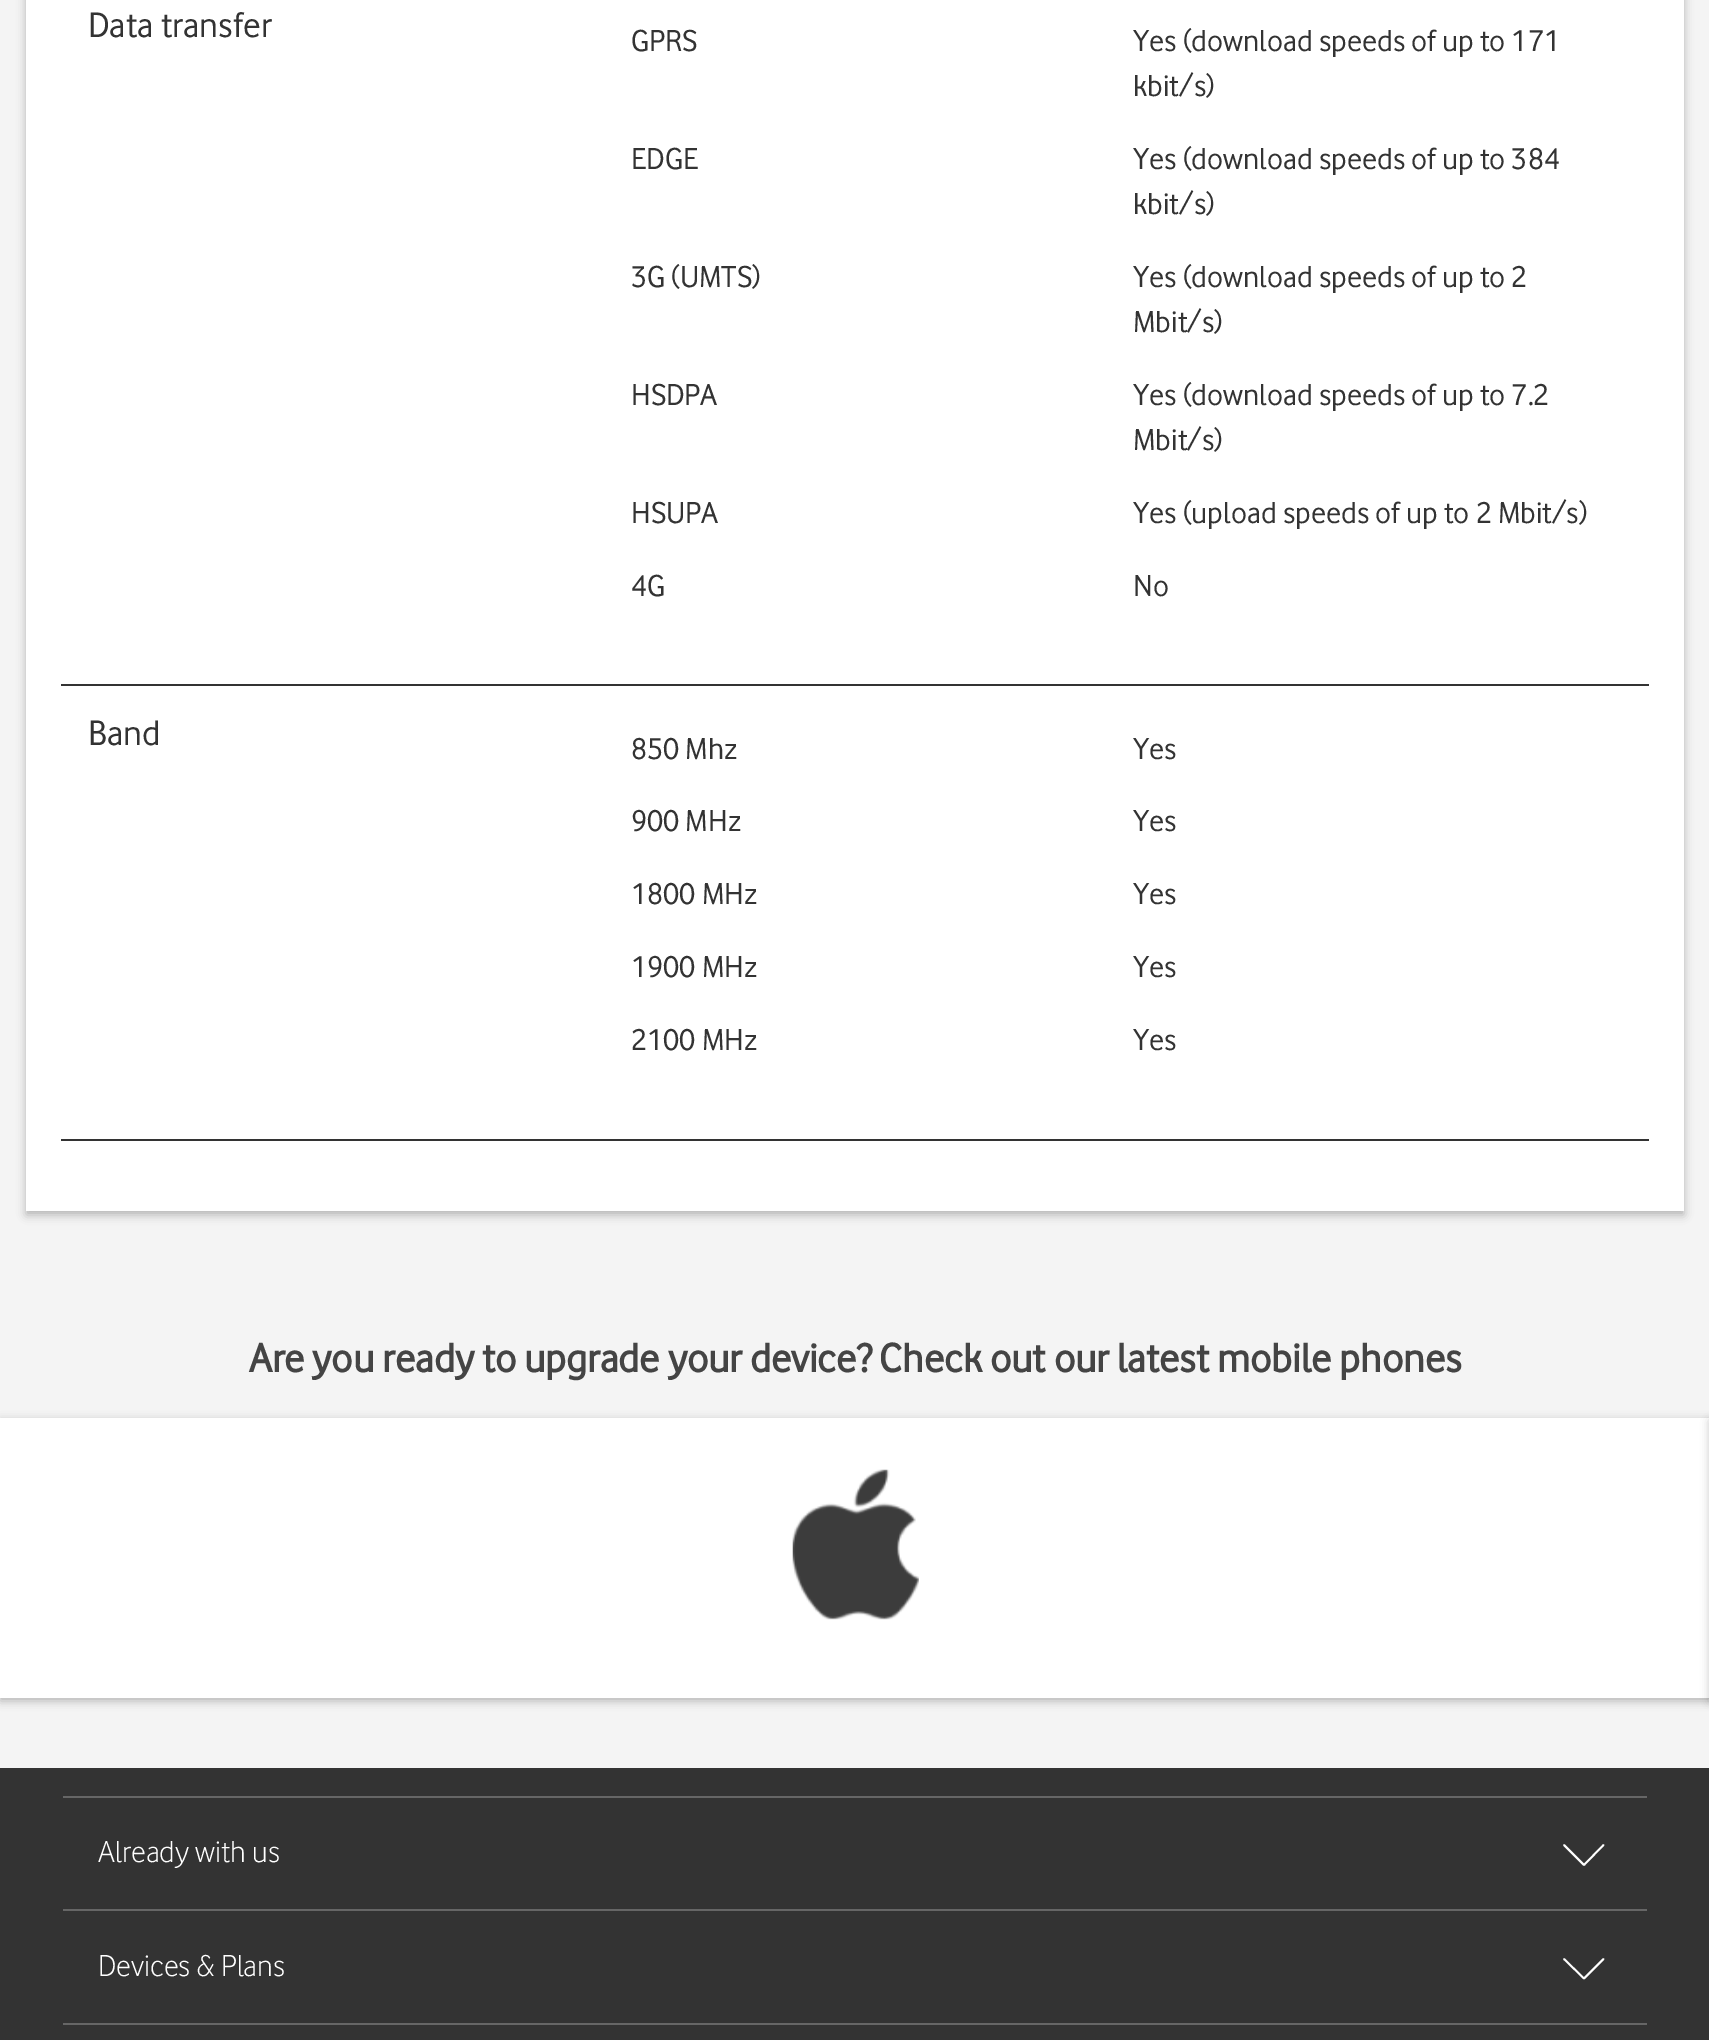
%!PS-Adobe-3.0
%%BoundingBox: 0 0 1709 2040
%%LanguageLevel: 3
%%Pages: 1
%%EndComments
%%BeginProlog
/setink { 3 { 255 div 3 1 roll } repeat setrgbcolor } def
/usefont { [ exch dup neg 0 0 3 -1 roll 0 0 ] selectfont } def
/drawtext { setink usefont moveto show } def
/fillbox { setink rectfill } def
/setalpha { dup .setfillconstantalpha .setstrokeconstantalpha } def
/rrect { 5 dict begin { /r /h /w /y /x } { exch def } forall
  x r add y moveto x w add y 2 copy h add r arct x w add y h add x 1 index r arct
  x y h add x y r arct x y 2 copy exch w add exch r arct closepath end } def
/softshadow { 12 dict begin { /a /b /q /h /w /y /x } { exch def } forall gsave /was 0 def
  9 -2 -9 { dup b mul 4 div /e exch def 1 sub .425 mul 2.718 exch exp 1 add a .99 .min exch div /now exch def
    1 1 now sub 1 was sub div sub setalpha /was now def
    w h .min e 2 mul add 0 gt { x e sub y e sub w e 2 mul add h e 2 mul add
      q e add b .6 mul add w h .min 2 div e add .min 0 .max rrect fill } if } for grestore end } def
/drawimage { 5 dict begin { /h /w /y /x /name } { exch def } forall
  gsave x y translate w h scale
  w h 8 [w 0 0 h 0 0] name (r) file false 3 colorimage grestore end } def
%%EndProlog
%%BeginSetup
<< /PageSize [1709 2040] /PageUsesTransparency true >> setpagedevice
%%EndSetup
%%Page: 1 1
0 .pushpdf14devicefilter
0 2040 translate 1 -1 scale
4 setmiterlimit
0 0 1709 2040 244 244 244 fillbox
0 0 0 setink
26 -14 1658 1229 0 4.5 0.25 softshadow
26 0 1658 1211 255 255 255 fillbox
61 684 1588 2 51 51 51 fillbox
(Data transfer) 88 37 /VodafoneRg-Regular 36.75 51 51 51 drawtext
(GPRS) 631 51 /VodafoneRg-Regular 31.5 51 51 51 drawtext
(Yes \(download speeds of up to 171) 1133 51 /VodafoneRg-Regular 31.5 51 51 51 drawtext
(kbit/s\)) 1133 96 /VodafoneRg-Regular 31.5 51 51 51 drawtext
(EDGE) 631 169 /VodafoneRg-Regular 31.5 51 51 51 drawtext
(Yes \(download speeds of up to 384) 1133 169 /VodafoneRg-Regular 31.5 51 51 51 drawtext
(kbit/s\)) 1133 214 /VodafoneRg-Regular 31.5 51 51 51 drawtext
(3G \(UMTS\)) 631 287 /VodafoneRg-Regular 31.5 51 51 51 drawtext
(Yes \(download speeds of up to 2) 1133 287 /VodafoneRg-Regular 31.5 51 51 51 drawtext
(Mbit/s\)) 1133 332 /VodafoneRg-Regular 31.5 51 51 51 drawtext
(HSDPA) 631 405 /VodafoneRg-Regular 31.5 51 51 51 drawtext
(Yes \(download speeds of up to 7.2) 1133 405 /VodafoneRg-Regular 31.5 51 51 51 drawtext
(Mbit/s\)) 1133 450 /VodafoneRg-Regular 31.5 51 51 51 drawtext
(HSUPA) 631 523 /VodafoneRg-Regular 31.5 51 51 51 drawtext
(Yes \(upload speeds of up to 2 Mbit/s\)) 1133 523 /VodafoneRg-Regular 31.5 51 51 51 drawtext
(4G) 631 596 /VodafoneRg-Regular 31.5 51 51 51 drawtext
(No) 1133 596 /VodafoneRg-Regular 31.5 51 51 51 drawtext
61 1139 1588 2 51 51 51 fillbox
(Band) 88 745 /VodafoneRg-Regular 36.75 51 51 51 drawtext
(850 Mhz) 631 759 /VodafoneRg-Regular 31.5 51 51 51 drawtext
(Yes) 1133 759 /VodafoneRg-Regular 31.5 51 51 51 drawtext
(900 MHz) 631 831 /VodafoneRg-Regular 31.5 51 51 51 drawtext
(Yes) 1133 831 /VodafoneRg-Regular 31.5 51 51 51 drawtext
(1800 MHz) 631 904 /VodafoneRg-Regular 31.5 51 51 51 drawtext
(Yes) 1133 904 /VodafoneRg-Regular 31.5 51 51 51 drawtext
(1900 MHz) 631 977 /VodafoneRg-Regular 31.5 51 51 51 drawtext
(Yes) 1133 977 /VodafoneRg-Regular 31.5 51 51 51 drawtext
(2100 MHz) 631 1050 /VodafoneRg-Regular 31.5 51 51 51 drawtext
(Yes) 1133 1050 /VodafoneRg-Regular 31.5 51 51 51 drawtext
(Are you ready to upgrade your device? Check out our latest mobile phones) 249 1372 /VodafoneRg-Bold 42 68 68 68 drawtext
0 0 0 setink
0 1421 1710 280 0 4.5 0.25 softshadow
0 1418 1709 280 255 255 255 fillbox
(assets/img1.rgb) 792 1469 127 151 drawimage
0 0 0 setink
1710 1421 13 280 0 4.5 0.25 softshadow
0 1768 1709 272 51 51 51 fillbox
63 1796 1584 2 102 102 102 fillbox
(Already with us) 98 1862 /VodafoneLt-Regular 31.5 255 255 255 drawtext
1.8 setlinewidth
1 setlinecap
1 setlinejoin
1564 1845 moveto 1584 1865 lineto 1603.5 1845 lineto stroke
63 1909 1584 2 102 102 102 fillbox
(Devices & Plans) 98 1976 /VodafoneLt-Regular 31.5 255 255 255 drawtext
1564 1959 moveto 1584 1978.5 lineto 1603.5 1959 lineto stroke
63 2023 1584 2 102 102 102 fillbox
.poppdf14devicefilter showpage
%%EOF
